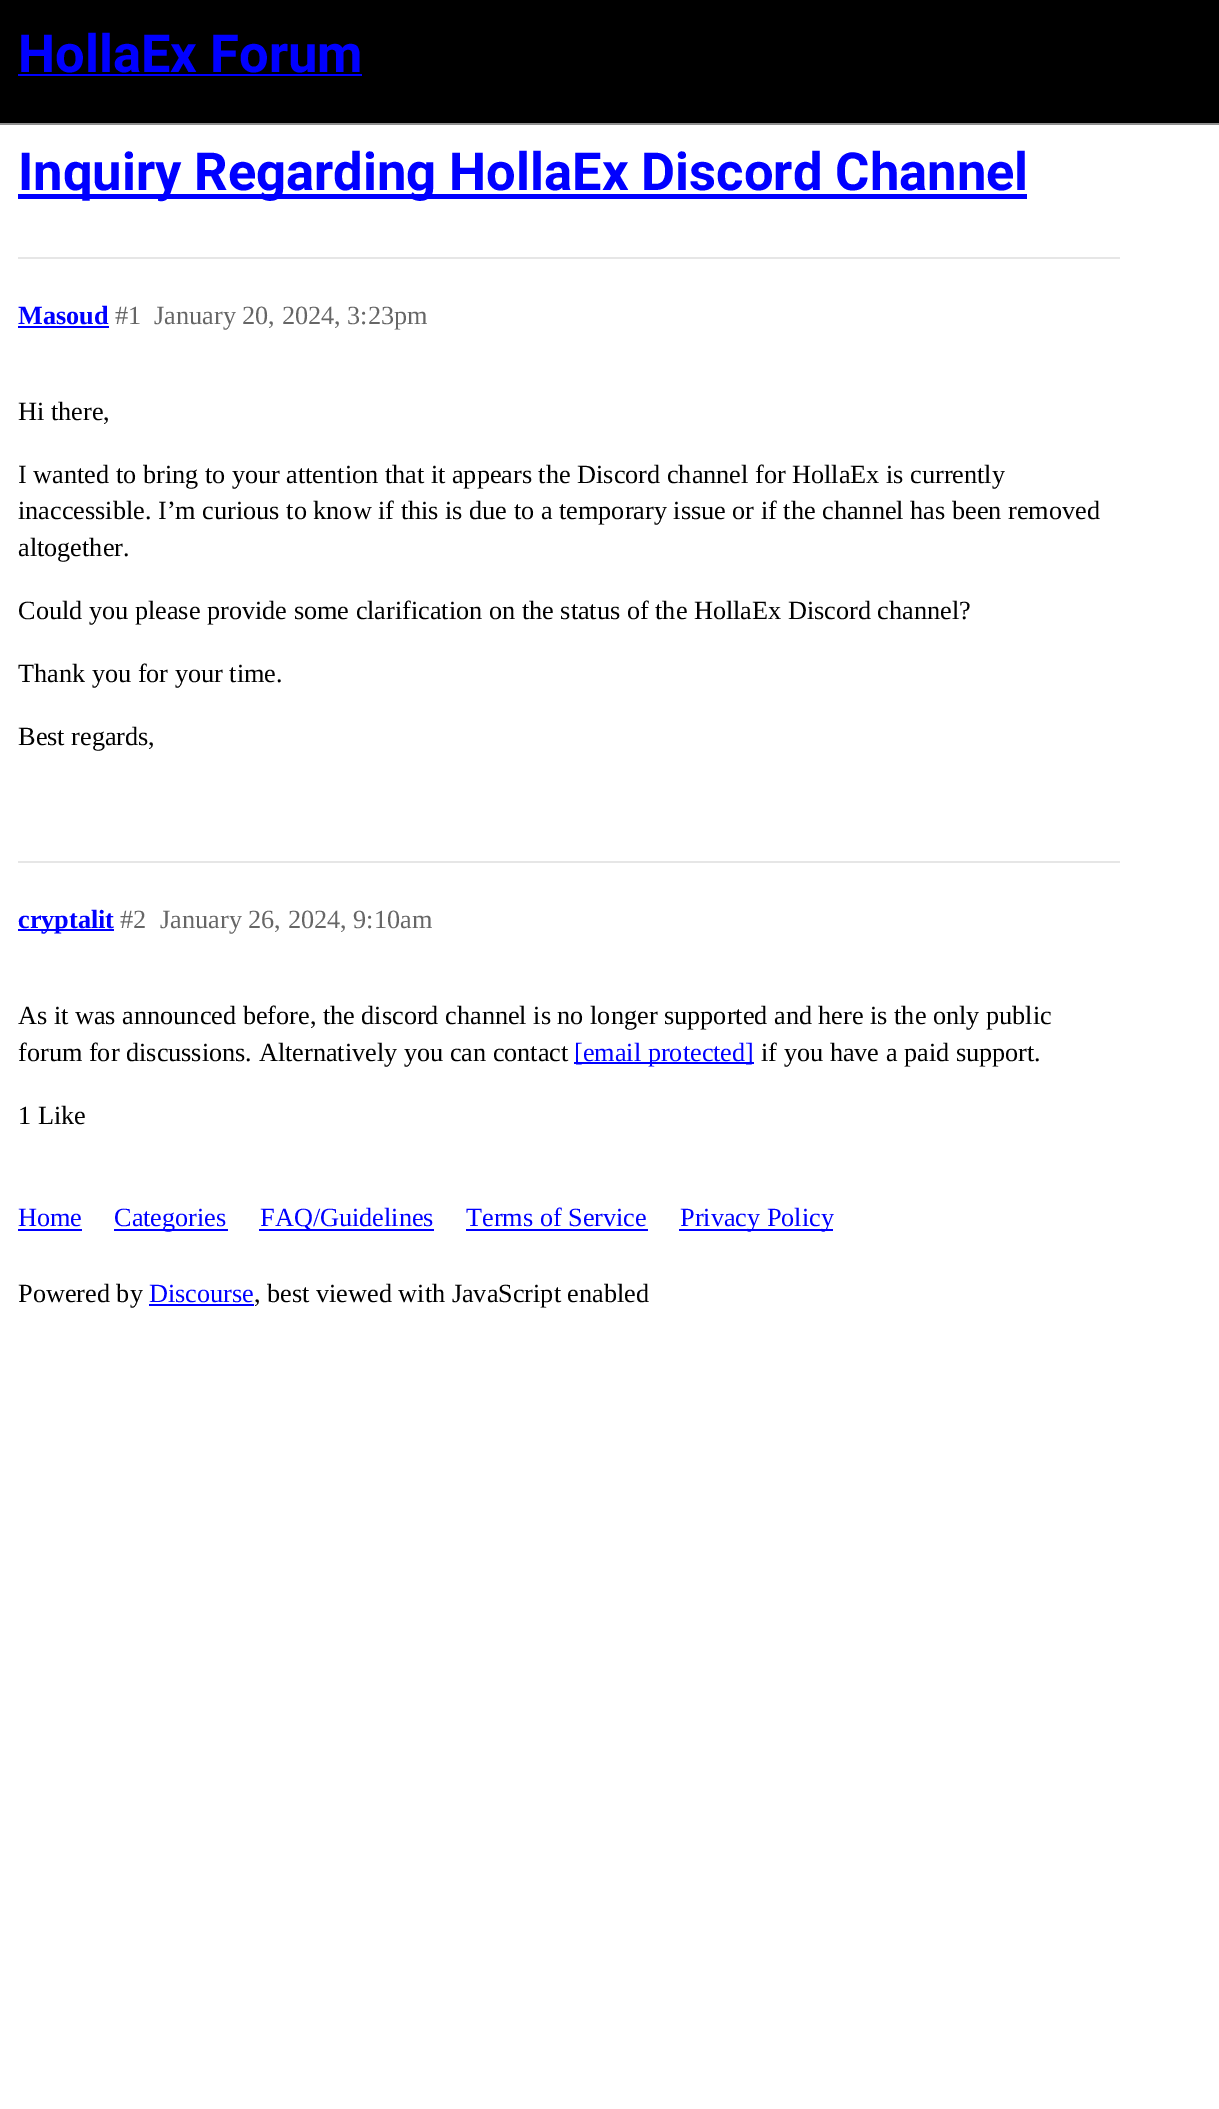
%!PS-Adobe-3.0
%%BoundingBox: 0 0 1219 2109
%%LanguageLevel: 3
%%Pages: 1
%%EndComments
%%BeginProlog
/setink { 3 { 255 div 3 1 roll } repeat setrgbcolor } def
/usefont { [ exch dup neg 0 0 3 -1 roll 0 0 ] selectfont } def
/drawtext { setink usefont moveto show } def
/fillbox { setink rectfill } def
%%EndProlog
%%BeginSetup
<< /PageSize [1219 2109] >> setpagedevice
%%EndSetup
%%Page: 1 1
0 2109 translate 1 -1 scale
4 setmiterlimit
0 0 1219 2109 255 255 255 fillbox
0 0 1219 123 0 0 0 fillbox
0 123 1219 2 143 143 143 fillbox
(HollaEx Forum) 18 72 /Roboto-Bold 52.5 0 0 255 drawtext
18 74 344 2 0 0 255 fillbox
18 194 1009 5 0 0 255 fillbox
(Inquiry Regarding HollaEx Discord Channel) 18 190 /Roboto-Bold 52.5 0 0 255 drawtext
18 257 1102 2 230 230 230 fillbox
(Masoud) 18 324 /LiberationSerif-Bold 26.25 0 0 255 drawtext
18 326 91 2 0 0 255 fillbox
(#1) 115 324 /LiberationSerif-Regular 26.25 102 102 102 drawtext
(January 20, 2024, 3:23pm) 154 324 /LiberationSerif-Regular 26.25 102 102 102 drawtext
(Hi there,) 18 420 /LiberationSerif-Regular 26.25 0 0 0 drawtext
(I wanted to bring to your attention that it appears the Discord channel for HollaEx is currently) 18 483 /LiberationSerif-Regular 26.25 0 0 0 drawtext
(inaccessible. I’m curious to know if this is due to a temporary issue or if the channel has been removed) 18 519 /LiberationSerif-Regular 26.25 0 0 0 drawtext
(altogether.) 18 556 /LiberationSerif-Regular 26.25 0 0 0 drawtext
(Could you please provide some clarification on the status of the HollaEx Discord channel?) 18 619 /LiberationSerif-Regular 26.25 0 0 0 drawtext
(Thank you for your time.) 18 682 /LiberationSerif-Regular 26.25 0 0 0 drawtext
(Best regards,) 18 745 /LiberationSerif-Regular 26.25 0 0 0 drawtext
18 861 1102 2 230 230 230 fillbox
18 929 96 2 0 0 255 fillbox
(cryptalit) 18 928 /LiberationSerif-Bold 26.25 0 0 255 drawtext
(#2) 120 928 /LiberationSerif-Regular 26.25 102 102 102 drawtext
(January 26, 2024, 9:10am) 160 928 /LiberationSerif-Regular 26.25 102 102 102 drawtext
(As it was announced before, the discord channel is no longer supported and here is the only public) 18 1024 /LiberationSerif-Regular 26.25 0 0 0 drawtext
(forum for discussions. Alternatively you can contact) 18 1061 /LiberationSerif-Regular 26.25 0 0 0 drawtext
574 1062 180 2 0 0 255 fillbox
([email protected]) 574 1061 /LiberationSerif-Regular 26.25 0 0 255 drawtext
(if you have a paid support.) 761 1061 /LiberationSerif-Regular 26.25 0 0 0 drawtext
(1 Like) 18 1124 /LiberationSerif-Regular 26.25 0 0 0 drawtext
(Home) 18 1226 /LiberationSerif-Regular 26.25 0 0 255 drawtext
18 1229 64 2 0 0 255 fillbox
114 1229 114 2 0 0 255 fillbox
(Categories) 114 1226 /LiberationSerif-Regular 26.25 0 0 255 drawtext
259 1229 175 2 0 0 255 fillbox
(FAQ/Guidelines) 260 1226 /LiberationSerif-Regular 26.25 0 0 255 drawtext
(Terms of Service) 466 1226 /LiberationSerif-Regular 26.25 0 0 255 drawtext
466 1229 182 2 0 0 255 fillbox
679 1229 154 2 0 0 255 fillbox
(Privacy Policy) 680 1226 /LiberationSerif-Regular 26.25 0 0 255 drawtext
(Powered by) 18 1302 /LiberationSerif-Regular 26.25 0 0 0 drawtext
(Discourse) 149 1302 /LiberationSerif-Regular 26.25 0 0 255 drawtext
149 1304 105 2 0 0 255 fillbox
(, best viewed with JavaScript enabled) 254 1302 /LiberationSerif-Regular 26.25 0 0 0 drawtext
showpage
%%EOF
